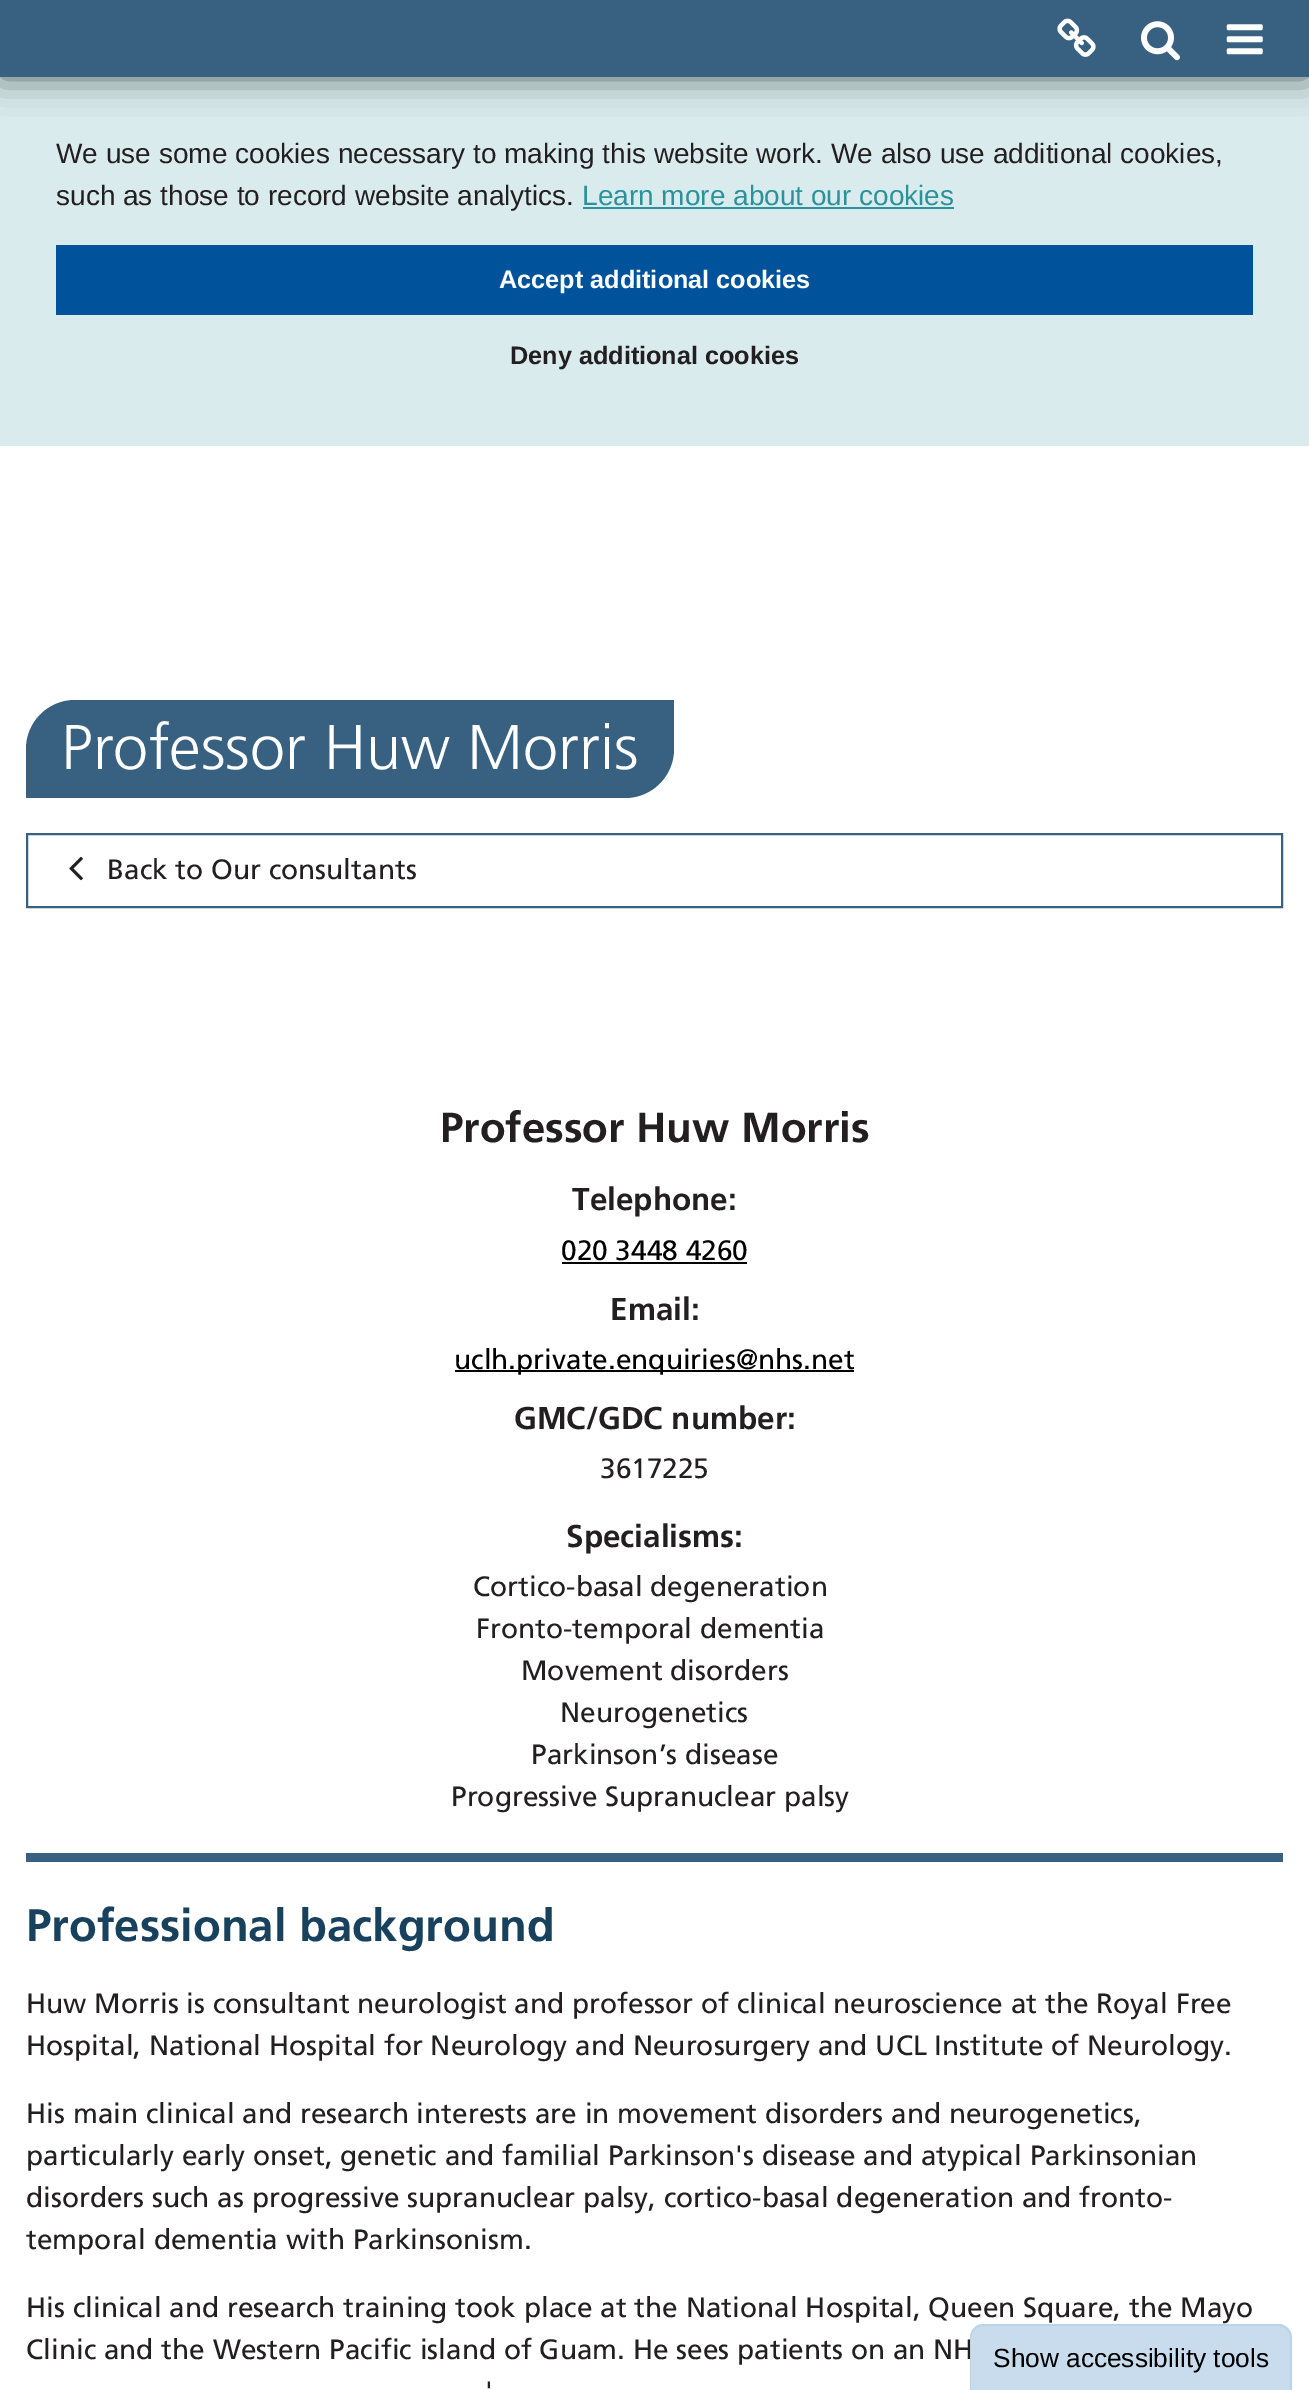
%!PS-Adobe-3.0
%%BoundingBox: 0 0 1309 2390
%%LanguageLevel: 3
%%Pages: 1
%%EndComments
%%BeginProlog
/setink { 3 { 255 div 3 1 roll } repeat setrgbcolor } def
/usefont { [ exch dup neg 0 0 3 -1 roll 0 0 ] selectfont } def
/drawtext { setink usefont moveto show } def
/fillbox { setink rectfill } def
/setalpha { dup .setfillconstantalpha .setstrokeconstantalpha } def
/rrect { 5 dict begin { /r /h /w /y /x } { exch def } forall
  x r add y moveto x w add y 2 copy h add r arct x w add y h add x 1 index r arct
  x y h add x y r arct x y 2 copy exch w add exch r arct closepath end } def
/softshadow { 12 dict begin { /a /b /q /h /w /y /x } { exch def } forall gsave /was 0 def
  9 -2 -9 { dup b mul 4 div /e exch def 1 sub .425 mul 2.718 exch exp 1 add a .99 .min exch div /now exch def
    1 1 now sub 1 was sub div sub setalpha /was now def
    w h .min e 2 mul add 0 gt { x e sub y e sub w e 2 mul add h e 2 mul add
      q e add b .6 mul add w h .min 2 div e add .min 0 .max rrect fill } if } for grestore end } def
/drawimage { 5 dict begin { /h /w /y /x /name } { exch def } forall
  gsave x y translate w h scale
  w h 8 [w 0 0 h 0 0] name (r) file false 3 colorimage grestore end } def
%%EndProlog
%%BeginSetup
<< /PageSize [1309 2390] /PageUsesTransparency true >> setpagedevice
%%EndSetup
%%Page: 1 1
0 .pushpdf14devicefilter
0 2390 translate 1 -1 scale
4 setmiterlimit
0 0 1309 2390 255 255 255 fillbox
0 77 1309 369 217 235 237 fillbox
(We use some cookies necessary to making this website work. We also use additional cookies,) 56 163 /LiberationSans-Regular 28 35 31 32 drawtext
(such as those to record website analytics.) 56 205 /LiberationSans-Regular 28 35 31 32 drawtext
(Learn more about our cookies) 582 205 /LiberationSans-Regular 28 43 145 154 drawtext
583 207 371 2 43 145 154 fillbox
56 245 1197 70 0 83 155 fillbox
(Accept additional cookies) 499 288 /LiberationSans-Bold 25.25 255 255 255 drawtext
(Deny additional cookies) 510 364 /LiberationSans-Bold 25.25 35 31 32 drawtext
0 0 0 setink
0 0 1309 77 0 17.5 0.6 softshadow
0 0 1309 77 55 96 129 fillbox
(assets/img1.rgb) 1057 18 39 39 drawimage
(assets/img2.rgb) 1141 21 39 40 drawimage
(assets/img3.rgb) 1226 24 37 31 drawimage
56 97 129 setink
75 700 moveto 674 700 lineto 674 749 lineto 674 776 652 798 625 798 curveto 26 798 lineto 26 749 lineto 26 722 48 700 75 700 curveto closepath fill
(Professor Huw Morris) 61 769 /Frutiger-Light 63 255 255 255 drawtext
55 96 129 setink
2 setlinewidth
27 834 1255 73 rectstroke
(assets/img4.rgb) 69 856 14 25 drawimage
(Back to Our consultants) 107 879 /Frutiger-Regular 28 35 31 32 drawtext
26 1853 1257 9 55 96 129 fillbox
(Professor Huw Morris) 440 1142 /Frutiger-Bold 42 35 31 32 drawtext
(Telephone:) 572 1210 /Frutiger-Bold 31.5 35 31 32 drawtext
(020 3448 4260) 561 1260 /Frutiger-Regular 28 0 0 0 drawtext
562 1262 185 2 0 0 0 fillbox
(Email:) 610 1320 /Frutiger-Bold 31.5 35 31 32 drawtext
455 1370 399 2 0 0 0 fillbox
(uclh.private.enquiries@nhs.net) 454 1369 /Frutiger-Regular 28 0 0 0 drawtext
(GMC/GDC number:) 514 1429 /Frutiger-Bold 31.5 35 31 32 drawtext
(3617225) 600 1478 /Frutiger-Regular 28 35 31 32 drawtext
(Specialisms:) 566 1547 /Frutiger-Bold 31.5 35 31 32 drawtext
(Cortico-basal degeneration) 473 1596 /Frutiger-Regular 28 35 31 32 drawtext
(Fronto-temporal dementia) 476 1638 /Frutiger-Regular 28 35 31 32 drawtext
(Movement disorders) 521 1680 /Frutiger-Regular 28 35 31 32 drawtext
(Neurogenetics) 560 1722 /Frutiger-Regular 28 35 31 32 drawtext
(Parkinson’s disease) 531 1764 /Frutiger-Regular 28 35 31 32 drawtext
(Progressive Supranuclear palsy) 451 1806 /Frutiger-Regular 28 35 31 32 drawtext
(Professional background) 26 1941 /Frutiger-Bold 45.5 23 65 92 drawtext
(Huw Morris is consultant neurologist and professor of clinical neuroscience at the Royal Free) 26 2013 /Frutiger-Regular 28 35 31 32 drawtext
(Hospital, National Hospital for Neurology and Neurosurgery and UCL Institute of Neurology.) 26 2055 /Frutiger-Regular 28 35 31 32 drawtext
(His main clinical and research interests are in movement disorders and neurogenetics,) 26 2123 /Frutiger-Regular 28 35 31 32 drawtext
(particularly early onset, genetic and familial Parkinson's disease and atypical Parkinsonian) 26 2165 /Frutiger-Regular 28 35 31 32 drawtext
(disorders such as progressive supranuclear palsy, cortico-basal degeneration and fronto-) 26 2207 /Frutiger-Regular 28 35 31 32 drawtext
(temporal dementia with Parkinsonism.) 26 2249 /Frutiger-Regular 28 35 31 32 drawtext
(His clinical and research training took place at the National Hospital, Queen Square, the Mayo) 26 2317 /Frutiger-Regular 28 35 31 32 drawtext
(Clinic and the Western Pacific island of Guam. He sees patients on an NH) 26 2359 /Frutiger-Regular 28 35 31 32 drawtext
(') 485 2401 /Frutiger-Regular 28 35 31 32 drawtext
200 220 237 setink
984 2324 moveto 1278 2324 lineto 1285.5 2324 1292 2330.5 1292 2338 curveto 1292 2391 lineto 970 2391 lineto 970 2338 lineto 970 2330.5 976.5 2324 984 2324 curveto closepath fill
186 211 231 setink
984 2324 moveto 1278 2324 lineto 1285 2324 1292 2330 1292 2338 curveto 1292 2390 lineto 970 2390 lineto 970 2338 lineto 970 2330 976 2324 984 2324 curveto closepath 984 2326 moveto 1278 2326 lineto 1284 2326 1290 2331 1290 2338 curveto 1290 2390 lineto 971 2390 lineto 971 2338 lineto 971 2331 977 2326 984 2326 curveto closepath eofill
(Show accessibility tools) 993 2367 /LiberationSans-Regular 26.25 0 0 0 drawtext
.poppdf14devicefilter showpage
%%EOF
